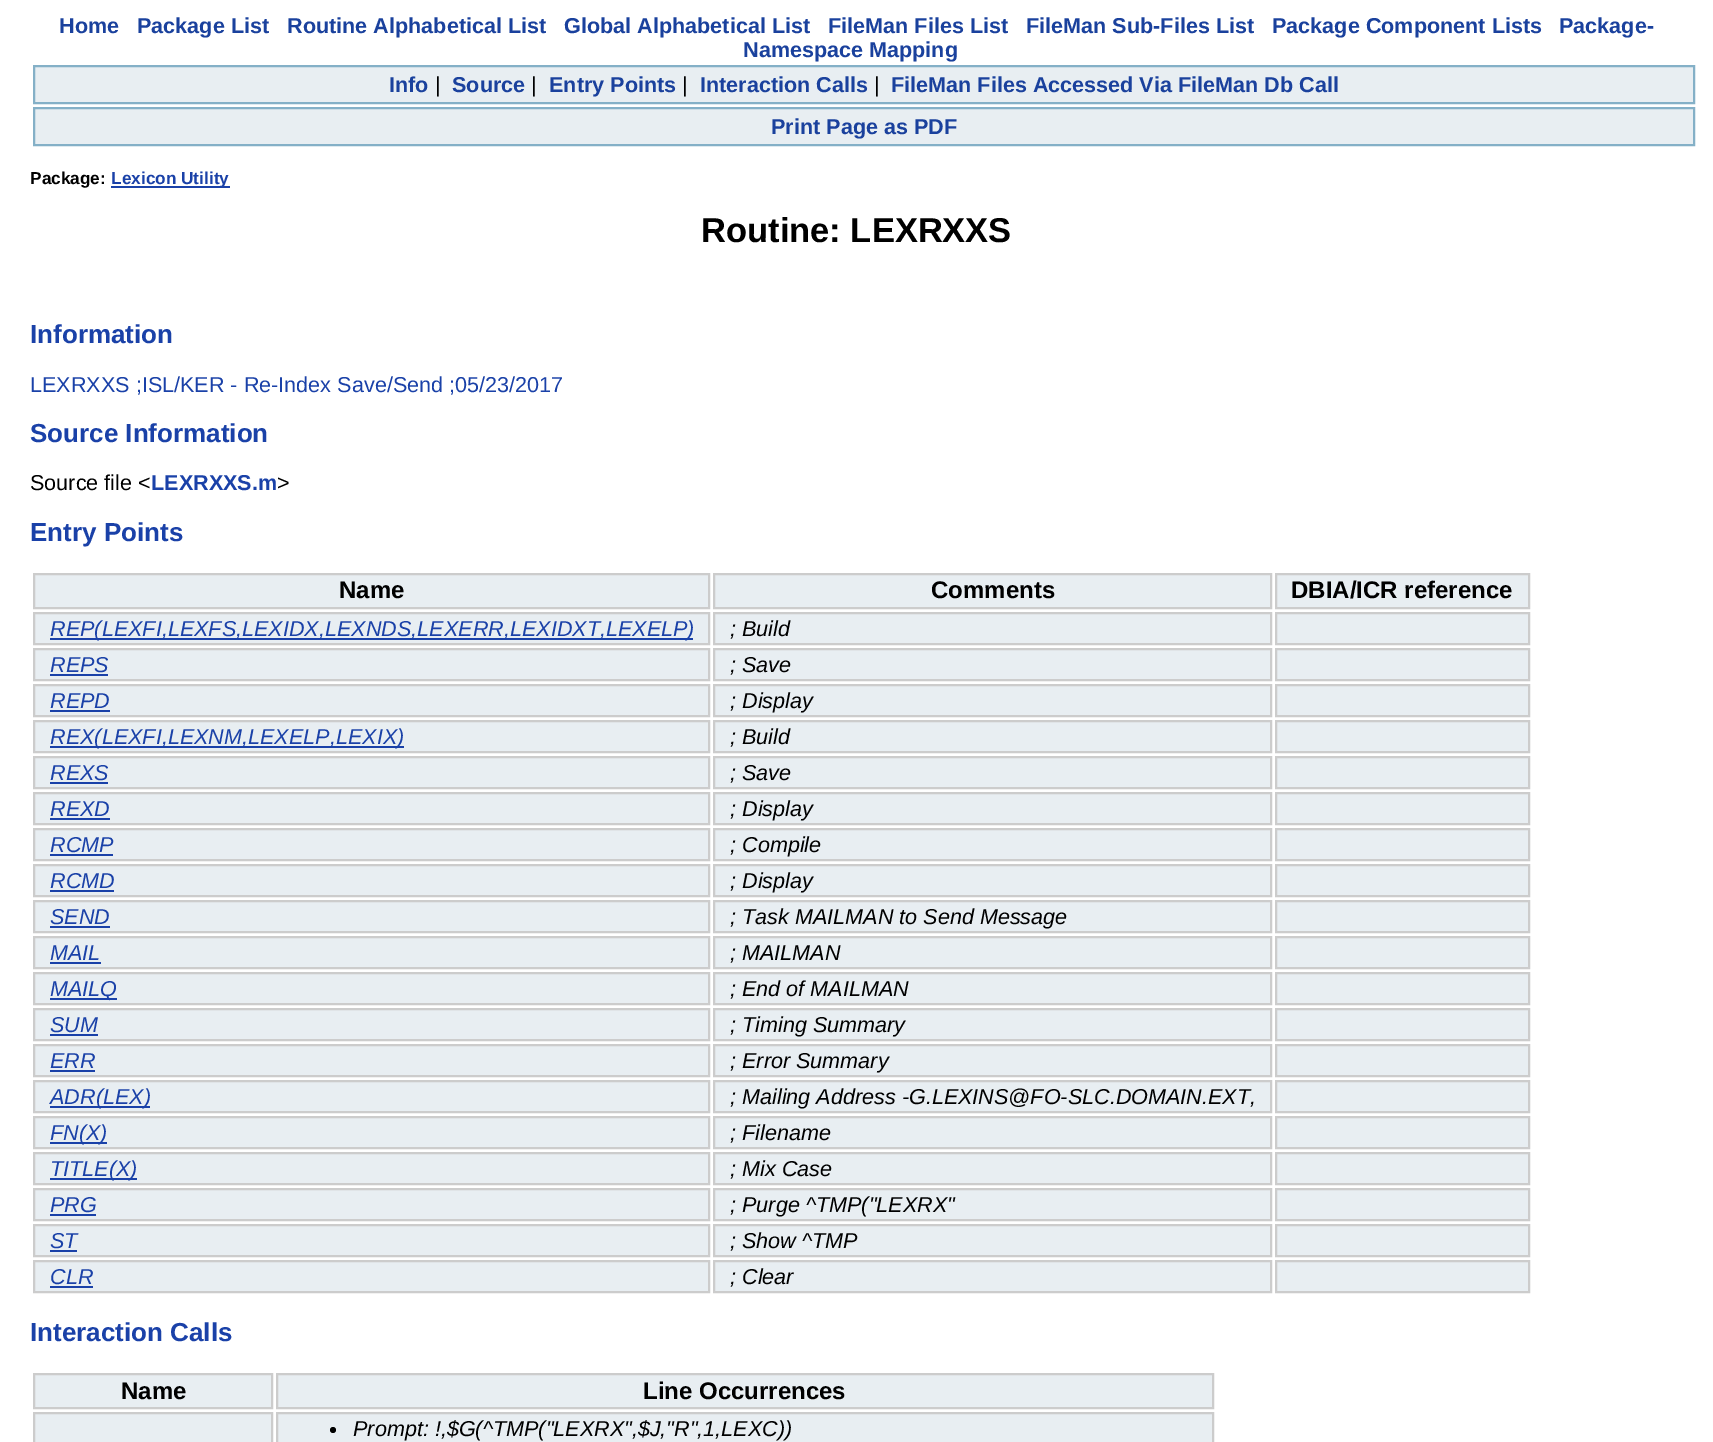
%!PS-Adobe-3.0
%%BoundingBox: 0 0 1713 1442
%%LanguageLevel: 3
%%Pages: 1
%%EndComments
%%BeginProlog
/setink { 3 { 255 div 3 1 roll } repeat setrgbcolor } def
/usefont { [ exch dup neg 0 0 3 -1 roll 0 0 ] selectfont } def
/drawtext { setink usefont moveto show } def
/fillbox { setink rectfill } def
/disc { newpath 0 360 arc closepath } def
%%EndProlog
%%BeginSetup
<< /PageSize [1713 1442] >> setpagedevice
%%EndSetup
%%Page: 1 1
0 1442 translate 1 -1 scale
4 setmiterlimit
0 0 1713 1442 255 255 255 fillbox
(Home) 59 33 /LiberationSans-Bold 21.6 26 65 157 drawtext
(Package List) 137 33 /LiberationSans-Bold 21.6 26 65 157 drawtext
(Routine Alphabetical List) 287 33 /LiberationSans-Bold 21.6 26 65 157 drawtext
(Global Alphabetical List) 564 33 /LiberationSans-Bold 21.6 26 65 157 drawtext
(FileMan Files List) 828 33 /LiberationSans-Bold 21.6 26 65 157 drawtext
(FileMan Sub-Files List) 1026 33 /LiberationSans-Bold 21.6 26 65 157 drawtext
(Package Component Lists) 1272 33 /LiberationSans-Bold 21.6 26 65 157 drawtext
(Package-) 1559 33 /LiberationSans-Bold 21.6 26 65 157 drawtext
(Namespace Mapping) 743 57 /LiberationSans-Bold 21.6 26 65 157 drawtext
232 238 242 setink
34 66 moveto 1694 66 lineto 1694 103 lineto 34 103 lineto closepath gsave fill grestore
132 176 199 setink
2 setlinewidth
stroke
(Info) 389 92 /LiberationSans-Bold 21.6 26 65 157 drawtext
(|) 435 92 /LiberationSans-Regular 21.6 0 0 0 drawtext
(Source) 452 92 /LiberationSans-Bold 21.6 26 65 157 drawtext
(|) 531 92 /LiberationSans-Regular 21.6 0 0 0 drawtext
(Entry Points) 549 92 /LiberationSans-Bold 21.6 26 65 157 drawtext
(|) 682 92 /LiberationSans-Regular 21.6 0 0 0 drawtext
(Interaction Calls) 700 92 /LiberationSans-Bold 21.6 26 65 157 drawtext
(|) 874 92 /LiberationSans-Regular 21.6 0 0 0 drawtext
(FileMan Files Accessed Via FileMan Db Call) 891 92 /LiberationSans-Bold 21.6 26 65 157 drawtext
232 238 242 setink
34 108 moveto 1694 108 lineto 1694 145 lineto 34 145 lineto closepath gsave fill grestore
132 176 199 setink
stroke
(Print Page as PDF) 771 134 /LiberationSans-Bold 21.6 26 65 157 drawtext
(Package:) 30 184 /LiberationSans-Bold 17.25 0 0 0 drawtext
111 186 119 2 26 65 168 fillbox
(Lexicon Utility) 111 184 /LiberationSans-Bold 17.25 26 65 168 drawtext
(Routine: LEXRXXS) 701 242 /LiberationSans-Bold 34.5 0 0 0 drawtext
(Information) 30 343 /LiberationSans-Bold 26 26 65 168 drawtext
(LEXRXXS ;ISL/KER - Re-Index Save/Send ;05/23/2017) 30 392 /LiberationSans-Regular 21.6 26 65 168 drawtext
(Source Information) 30 442 /LiberationSans-Bold 26 26 65 168 drawtext
(Source file <) 30 490 /LiberationSans-Regular 21.6 0 0 0 drawtext
(LEXRXXS.m) 151 490 /LiberationSans-Bold 21.6 26 65 168 drawtext
(>) 277 490 /LiberationSans-Regular 21.6 0 0 0 drawtext
(Entry Points) 30 541 /LiberationSans-Bold 26 26 65 168 drawtext
232 238 242 setink
34 574 moveto 709 574 lineto 709 608 lineto 34 608 lineto closepath gsave fill grestore
204 204 204 setink
stroke
(Name) 339 598 /LiberationSans-Bold 24 0 0 0 drawtext
232 238 242 setink
714 574 moveto 1271 574 lineto 1271 608 lineto 714 608 lineto closepath gsave fill grestore
204 204 204 setink
stroke
(Comments) 931 598 /LiberationSans-Bold 24 0 0 0 drawtext
232 238 242 setink
1276 574 moveto 1529 574 lineto 1529 608 lineto 1276 608 lineto closepath gsave fill grestore
204 204 204 setink
stroke
(DBIA/ICR reference) 1291 598 /LiberationSans-Bold 24 0 0 0 drawtext
232 238 242 setink
34 613 moveto 709 613 lineto 709 644 lineto 34 644 lineto closepath gsave fill grestore
204 204 204 setink
stroke
50 638 643 2 26 65 168 fillbox
(REP\(LEXFI,LEXFS,LEXIDX,LEXNDS,LEXERR,LEXIDXT,LEXELP\)) 50 636 /LiberationSans-Italic 21.6 26 65 168 drawtext
232 238 242 setink
714 613 moveto 1271 613 lineto 1271 644 lineto 714 644 lineto closepath gsave fill grestore
204 204 204 setink
stroke
(; Build) 730 636 /LiberationSans-Italic 21.6 0 0 0 drawtext
232 238 242 setink
1276 613 moveto 1529 613 lineto 1529 644 lineto 1276 644 lineto closepath gsave fill grestore
204 204 204 setink
stroke
232 238 242 setink
34 649 moveto 709 649 lineto 709 680 lineto 34 680 lineto closepath gsave fill grestore
204 204 204 setink
stroke
(REPS) 50 672 /LiberationSans-Italic 21.6 26 65 168 drawtext
50 674 58 2 26 65 168 fillbox
232 238 242 setink
714 649 moveto 1271 649 lineto 1271 680 lineto 714 680 lineto closepath gsave fill grestore
204 204 204 setink
stroke
(; Save) 730 672 /LiberationSans-Italic 21.6 0 0 0 drawtext
232 238 242 setink
1276 649 moveto 1529 649 lineto 1529 680 lineto 1276 680 lineto closepath gsave fill grestore
204 204 204 setink
stroke
232 238 242 setink
34 685 moveto 709 685 lineto 709 716 lineto 34 716 lineto closepath gsave fill grestore
204 204 204 setink
stroke
(REPD) 50 708 /LiberationSans-Italic 21.6 26 65 168 drawtext
50 710 60 2 26 65 168 fillbox
232 238 242 setink
714 685 moveto 1271 685 lineto 1271 716 lineto 714 716 lineto closepath gsave fill grestore
204 204 204 setink
stroke
(; Display) 730 708 /LiberationSans-Italic 21.6 0 0 0 drawtext
232 238 242 setink
1276 685 moveto 1529 685 lineto 1529 716 lineto 1276 716 lineto closepath gsave fill grestore
204 204 204 setink
stroke
232 238 242 setink
34 721 moveto 709 721 lineto 709 752 lineto 34 752 lineto closepath gsave fill grestore
204 204 204 setink
stroke
50 746 354 2 26 65 168 fillbox
(REX\(LEXFI,LEXNM,LEXELP,LEXIX\)) 50 744 /LiberationSans-Italic 21.6 26 65 168 drawtext
232 238 242 setink
714 721 moveto 1271 721 lineto 1271 752 lineto 714 752 lineto closepath gsave fill grestore
204 204 204 setink
stroke
(; Build) 730 744 /LiberationSans-Italic 21.6 0 0 0 drawtext
232 238 242 setink
1276 721 moveto 1529 721 lineto 1529 752 lineto 1276 752 lineto closepath gsave fill grestore
204 204 204 setink
stroke
232 238 242 setink
34 757 moveto 709 757 lineto 709 788 lineto 34 788 lineto closepath gsave fill grestore
204 204 204 setink
stroke
(REXS) 50 780 /LiberationSans-Italic 21.6 26 65 168 drawtext
50 782 58 2 26 65 168 fillbox
232 238 242 setink
714 757 moveto 1271 757 lineto 1271 788 lineto 714 788 lineto closepath gsave fill grestore
204 204 204 setink
stroke
(; Save) 730 780 /LiberationSans-Italic 21.6 0 0 0 drawtext
232 238 242 setink
1276 757 moveto 1529 757 lineto 1529 788 lineto 1276 788 lineto closepath gsave fill grestore
204 204 204 setink
stroke
232 238 242 setink
34 793 moveto 709 793 lineto 709 824 lineto 34 824 lineto closepath gsave fill grestore
204 204 204 setink
stroke
(REXD) 50 816 /LiberationSans-Italic 21.6 26 65 168 drawtext
50 818 60 2 26 65 168 fillbox
232 238 242 setink
714 793 moveto 1271 793 lineto 1271 824 lineto 714 824 lineto closepath gsave fill grestore
204 204 204 setink
stroke
(; Display) 730 816 /LiberationSans-Italic 21.6 0 0 0 drawtext
232 238 242 setink
1276 793 moveto 1529 793 lineto 1529 824 lineto 1276 824 lineto closepath gsave fill grestore
204 204 204 setink
stroke
232 238 242 setink
34 829 moveto 709 829 lineto 709 860 lineto 34 860 lineto closepath gsave fill grestore
204 204 204 setink
stroke
(RCMP) 50 852 /LiberationSans-Italic 21.6 26 65 168 drawtext
50 854 63 2 26 65 168 fillbox
232 238 242 setink
714 829 moveto 1271 829 lineto 1271 860 lineto 714 860 lineto closepath gsave fill grestore
204 204 204 setink
stroke
(; Compile) 730 852 /LiberationSans-Italic 21.6 0 0 0 drawtext
232 238 242 setink
1276 829 moveto 1529 829 lineto 1529 860 lineto 1276 860 lineto closepath gsave fill grestore
204 204 204 setink
stroke
232 238 242 setink
34 865 moveto 709 865 lineto 709 896 lineto 34 896 lineto closepath gsave fill grestore
204 204 204 setink
stroke
(RCMD) 50 888 /LiberationSans-Italic 21.6 26 65 168 drawtext
50 890 64 2 26 65 168 fillbox
232 238 242 setink
714 865 moveto 1271 865 lineto 1271 896 lineto 714 896 lineto closepath gsave fill grestore
204 204 204 setink
stroke
(; Display) 730 888 /LiberationSans-Italic 21.6 0 0 0 drawtext
232 238 242 setink
1276 865 moveto 1529 865 lineto 1529 896 lineto 1276 896 lineto closepath gsave fill grestore
204 204 204 setink
stroke
232 238 242 setink
34 901 moveto 709 901 lineto 709 932 lineto 34 932 lineto closepath gsave fill grestore
204 204 204 setink
stroke
(SEND) 50 924 /LiberationSans-Italic 21.6 26 65 168 drawtext
50 926 60 2 26 65 168 fillbox
232 238 242 setink
714 901 moveto 1271 901 lineto 1271 932 lineto 714 932 lineto closepath gsave fill grestore
204 204 204 setink
stroke
(; Task MAILMAN to Send Message) 730 924 /LiberationSans-Italic 21.6 0 0 0 drawtext
232 238 242 setink
1276 901 moveto 1529 901 lineto 1529 932 lineto 1276 932 lineto closepath gsave fill grestore
204 204 204 setink
stroke
232 238 242 setink
34 937 moveto 709 937 lineto 709 968 lineto 34 968 lineto closepath gsave fill grestore
204 204 204 setink
stroke
(MAIL) 50 960 /LiberationSans-Italic 21.6 26 65 168 drawtext
50 962 51 2 26 65 168 fillbox
232 238 242 setink
714 937 moveto 1271 937 lineto 1271 968 lineto 714 968 lineto closepath gsave fill grestore
204 204 204 setink
stroke
(; MAILMAN) 730 960 /LiberationSans-Italic 21.6 0 0 0 drawtext
232 238 242 setink
1276 937 moveto 1529 937 lineto 1529 968 lineto 1276 968 lineto closepath gsave fill grestore
204 204 204 setink
stroke
232 238 242 setink
34 973 moveto 709 973 lineto 709 1004 lineto 34 1004 lineto closepath gsave fill grestore
204 204 204 setink
stroke
50 998 67 2 26 65 168 fillbox
(MAILQ) 50 996 /LiberationSans-Italic 21.6 26 65 168 drawtext
232 238 242 setink
714 973 moveto 1271 973 lineto 1271 1004 lineto 714 1004 lineto closepath gsave fill grestore
204 204 204 setink
stroke
(; End of MAILMAN) 730 996 /LiberationSans-Italic 21.6 0 0 0 drawtext
232 238 242 setink
1276 973 moveto 1529 973 lineto 1529 1004 lineto 1276 1004 lineto closepath gsave fill grestore
204 204 204 setink
stroke
232 238 242 setink
34 1009 moveto 709 1009 lineto 709 1040 lineto 34 1040 lineto closepath gsave fill grestore
204 204 204 setink
stroke
(SUM) 50 1032 /LiberationSans-Italic 21.6 26 65 168 drawtext
50 1034 48 2 26 65 168 fillbox
232 238 242 setink
714 1009 moveto 1271 1009 lineto 1271 1040 lineto 714 1040 lineto closepath gsave fill grestore
204 204 204 setink
stroke
(; Timing Summary) 730 1032 /LiberationSans-Italic 21.6 0 0 0 drawtext
232 238 242 setink
1276 1009 moveto 1529 1009 lineto 1529 1040 lineto 1276 1040 lineto closepath gsave fill grestore
204 204 204 setink
stroke
232 238 242 setink
34 1045 moveto 709 1045 lineto 709 1076 lineto 34 1076 lineto closepath gsave fill grestore
204 204 204 setink
stroke
(ERR) 50 1068 /LiberationSans-Italic 21.6 26 65 168 drawtext
50 1070 45 2 26 65 168 fillbox
232 238 242 setink
714 1045 moveto 1271 1045 lineto 1271 1076 lineto 714 1076 lineto closepath gsave fill grestore
204 204 204 setink
stroke
(; Error Summary) 730 1068 /LiberationSans-Italic 21.6 0 0 0 drawtext
232 238 242 setink
1276 1045 moveto 1529 1045 lineto 1529 1076 lineto 1276 1076 lineto closepath gsave fill grestore
204 204 204 setink
stroke
232 238 242 setink
34 1081 moveto 709 1081 lineto 709 1112 lineto 34 1112 lineto closepath gsave fill grestore
204 204 204 setink
stroke
50 1106 100 2 26 65 168 fillbox
(ADR\(LEX\)) 50 1104 /LiberationSans-Italic 21.6 26 65 168 drawtext
232 238 242 setink
714 1081 moveto 1271 1081 lineto 1271 1112 lineto 714 1112 lineto closepath gsave fill grestore
204 204 204 setink
stroke
(; Mailing Address -G.LEXINS@FO-SLC.DOMAIN.EXT,) 730 1104 /LiberationSans-Italic 21.6 0 0 0 drawtext
232 238 242 setink
1276 1081 moveto 1529 1081 lineto 1529 1112 lineto 1276 1112 lineto closepath gsave fill grestore
204 204 204 setink
stroke
232 238 242 setink
34 1117 moveto 709 1117 lineto 709 1148 lineto 34 1148 lineto closepath gsave fill grestore
204 204 204 setink
stroke
50 1142 57 2 26 65 168 fillbox
(FN\(X\)) 50 1140 /LiberationSans-Italic 21.6 26 65 168 drawtext
232 238 242 setink
714 1117 moveto 1271 1117 lineto 1271 1148 lineto 714 1148 lineto closepath gsave fill grestore
204 204 204 setink
stroke
(; Filename) 730 1140 /LiberationSans-Italic 21.6 0 0 0 drawtext
232 238 242 setink
1276 1117 moveto 1529 1117 lineto 1529 1148 lineto 1276 1148 lineto closepath gsave fill grestore
204 204 204 setink
stroke
232 238 242 setink
34 1153 moveto 709 1153 lineto 709 1184 lineto 34 1184 lineto closepath gsave fill grestore
204 204 204 setink
stroke
50 1178 87 2 26 65 168 fillbox
(TITLE\(X\)) 50 1176 /LiberationSans-Italic 21.6 26 65 168 drawtext
232 238 242 setink
714 1153 moveto 1271 1153 lineto 1271 1184 lineto 714 1184 lineto closepath gsave fill grestore
204 204 204 setink
stroke
(; Mix Case) 730 1176 /LiberationSans-Italic 21.6 0 0 0 drawtext
232 238 242 setink
1276 1153 moveto 1529 1153 lineto 1529 1184 lineto 1276 1184 lineto closepath gsave fill grestore
204 204 204 setink
stroke
232 238 242 setink
34 1189 moveto 709 1189 lineto 709 1220 lineto 34 1220 lineto closepath gsave fill grestore
204 204 204 setink
stroke
(PRG) 50 1212 /LiberationSans-Italic 21.6 26 65 168 drawtext
50 1214 46 2 26 65 168 fillbox
232 238 242 setink
714 1189 moveto 1271 1189 lineto 1271 1220 lineto 714 1220 lineto closepath gsave fill grestore
204 204 204 setink
stroke
(; Purge ^TMP\("LEXRX") 730 1212 /LiberationSans-Italic 21.6 0 0 0 drawtext
232 238 242 setink
1276 1189 moveto 1529 1189 lineto 1529 1220 lineto 1276 1220 lineto closepath gsave fill grestore
204 204 204 setink
stroke
232 238 242 setink
34 1225 moveto 709 1225 lineto 709 1256 lineto 34 1256 lineto closepath gsave fill grestore
204 204 204 setink
stroke
(ST) 50 1248 /LiberationSans-Italic 21.6 26 65 168 drawtext
50 1250 27 2 26 65 168 fillbox
232 238 242 setink
714 1225 moveto 1271 1225 lineto 1271 1256 lineto 714 1256 lineto closepath gsave fill grestore
204 204 204 setink
stroke
(; Show ^TMP) 730 1248 /LiberationSans-Italic 21.6 0 0 0 drawtext
232 238 242 setink
1276 1225 moveto 1529 1225 lineto 1529 1256 lineto 1276 1256 lineto closepath gsave fill grestore
204 204 204 setink
stroke
232 238 242 setink
34 1261 moveto 709 1261 lineto 709 1292 lineto 34 1292 lineto closepath gsave fill grestore
204 204 204 setink
stroke
(CLR) 50 1284 /LiberationSans-Italic 21.6 26 65 168 drawtext
50 1286 43 2 26 65 168 fillbox
232 238 242 setink
714 1261 moveto 1271 1261 lineto 1271 1292 lineto 714 1292 lineto closepath gsave fill grestore
204 204 204 setink
stroke
(; Clear) 730 1284 /LiberationSans-Italic 21.6 0 0 0 drawtext
232 238 242 setink
1276 1261 moveto 1529 1261 lineto 1529 1292 lineto 1276 1292 lineto closepath gsave fill grestore
204 204 204 setink
stroke
(Interaction Calls) 30 1341 /LiberationSans-Bold 26 26 65 168 drawtext
232 238 242 setink
34 1374 moveto 272 1374 lineto 272 1408 lineto 34 1408 lineto closepath gsave fill grestore
204 204 204 setink
stroke
(Name) 121 1399 /LiberationSans-Bold 24 0 0 0 drawtext
232 238 242 setink
277 1374 moveto 1213 1374 lineto 1213 1408 lineto 277 1408 lineto closepath gsave fill grestore
204 204 204 setink
stroke
(Line Occurrences) 643 1399 /LiberationSans-Bold 24 0 0 0 drawtext
232 238 242 setink
34 1413 moveto 272 1413 lineto 272 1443 lineto 34 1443 lineto closepath gsave fill grestore
204 204 204 setink
stroke
232 238 242 setink
277 1413 moveto 1213 1413 lineto 1213 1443 lineto 277 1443 lineto closepath gsave fill grestore
204 204 204 setink
stroke
0 0 0 setink
333 1430 3 disc fill
(Prompt: !,$G\(^TMP\("LEXRX",$J,"R",1,LEXC\)\)) 353 1436 /LiberationSans-Italic 21.6 0 0 0 drawtext
showpage
%%EOF
